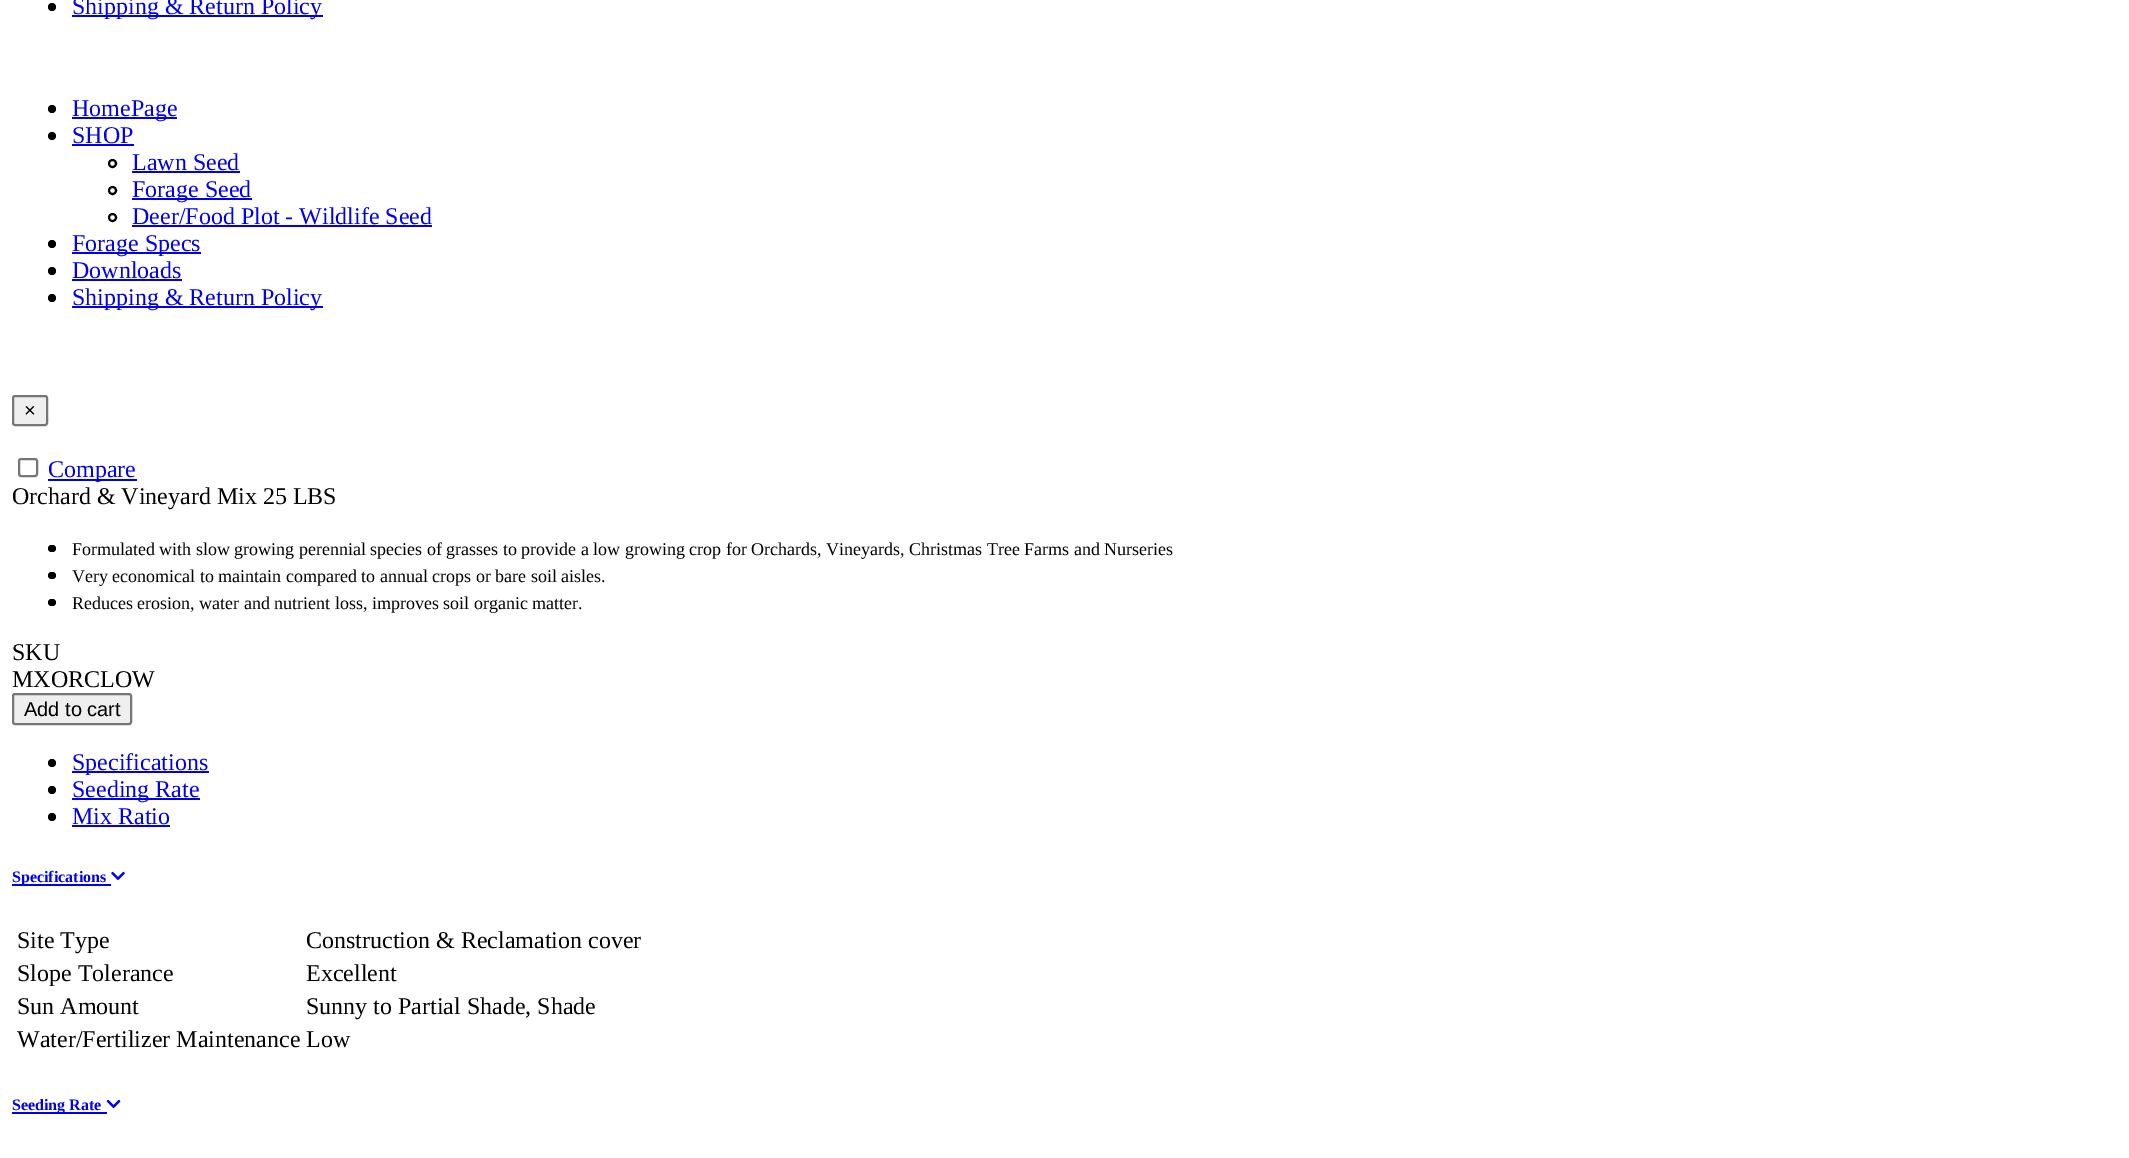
%!PS-Adobe-3.0
%%BoundingBox: 0 0 2129 1158
%%LanguageLevel: 3
%%Pages: 1
%%EndComments
%%BeginProlog
/setink { 3 { 255 div 3 1 roll } repeat setrgbcolor } def
/usefont { [ exch dup neg 0 0 3 -1 roll 0 0 ] selectfont } def
/drawtext { setink usefont moveto show } def
/fillbox { setink rectfill } def
/disc { newpath 0 360 arc closepath } def
/rrect { 5 dict begin { /r /h /w /y /x } { exch def } forall
  x r add y moveto x w add y 2 copy h add r arct x w add y h add x 1 index r arct
  x y h add x y r arct x y 2 copy exch w add exch r arct closepath end } def
/drawimage { 5 dict begin { /h /w /y /x /name } { exch def } forall
  gsave x y translate w h scale
  w h 8 [w 0 0 h 0 0] name (r) file false 3 colorimage grestore end } def
%%EndProlog
%%BeginSetup
<< /PageSize [2129 1158] >> setpagedevice
%%EndSetup
%%Page: 1 1
0 1158 translate 1 -1 scale
4 setmiterlimit
0 0 2129 1158 255 255 255 fillbox
0 0 0 setink
52 7 4 disc fill
72 15 251 2 0 0 238 fillbox
(Shipping & Return Policy) 72 14 /LiberationSerif-Regular 24 0 0 238 drawtext
0 0 0 setink
52 109 4 disc fill
72 117 105 2 0 0 238 fillbox
(HomePage) 72 116 /LiberationSerif-Regular 24 0 0 238 drawtext
0 0 0 setink
52 136 4 disc fill
(SHOP) 72 143 /LiberationSerif-Regular 24 0 0 238 drawtext
72 144 62 2 0 0 238 fillbox
0 0 0 setink
2 setlinewidth
112.5 163.5 3.5 disc stroke
(Lawn Seed) 132 170 /LiberationSerif-Regular 24 0 0 238 drawtext
132 171 108 2 0 0 238 fillbox
0 0 0 setink
112.5 190.5 3.5 disc stroke
132 198 120 2 0 0 238 fillbox
(Forage Seed) 132 197 /LiberationSerif-Regular 24 0 0 238 drawtext
0 0 0 setink
112.5 217.5 3.5 disc stroke
(Deer/Food Plot - Wildlife Seed) 132 224 /LiberationSerif-Regular 24 0 0 238 drawtext
132 225 300 2 0 0 238 fillbox
0 0 0 setink
52 244 4 disc fill
72 252 129 2 0 0 238 fillbox
(Forage Specs) 72 251 /LiberationSerif-Regular 24 0 0 238 drawtext
0 0 0 setink
52 271 4 disc fill
(Downloads) 72 278 /LiberationSerif-Regular 24 0 0 238 drawtext
72 279 110 2 0 0 238 fillbox
0 0 0 setink
52 298 4 disc fill
72 306 251 2 0 0 238 fillbox
(Shipping & Return Policy) 72 305 /LiberationSerif-Regular 24 0 0 238 drawtext
239 239 239 setink
13 396 34 29 2 rrect gsave fill grestore
118 118 118 setink
stroke
(×) 24 417 /LiberationSans-Regular 20 0 0 0 drawtext
118 118 118 setink
19 459 18 17 2 rrect stroke
48 479 89 2 0 0 238 fillbox
(Compare) 48 477 /LiberationSerif-Regular 24 0 0 238 drawtext
(Orchard & Vineyard Mix 25 LBS) 12 504 /LiberationSerif-Regular 24 0 0 0 drawtext
48 545 8 7 3.5 rrect fill
(Formulated with slow growing perennial species of grasses to provide a low growing crop for Orchards, Vineyards, Christmas Tree Farms and Nurseries) 72 555 /LiberationSerif-Regular 18 0 0 0 drawtext
48 572 8 7 3.5 rrect fill
(Very economical to maintain compared to annual crops or bare soil aisles.) 72 582 /LiberationSerif-Regular 18 0 0 0 drawtext
48 599 8 7 3.5 rrect fill
(Reduces erosion, water and nutrient loss, improves soil organic matter.) 72 609 /LiberationSerif-Regular 18 0 0 0 drawtext
(SKU) 12 660 /LiberationSerif-Regular 24 0 0 0 drawtext
(MXORCLOW) 12 687 /LiberationSerif-Regular 24 0 0 0 drawtext
239 239 239 setink
13 694 118 30 2 rrect gsave fill grestore
118 118 118 setink
stroke
(Add to cart) 24 716 /LiberationSans-Regular 20 0 0 0 drawtext
52 763 4 disc fill
72 771 137 2 0 0 238 fillbox
(Specifications) 72 770 /LiberationSerif-Regular 24 0 0 238 drawtext
0 0 0 setink
52 790 4 disc fill
72 798 128 2 0 0 238 fillbox
(Seeding Rate) 72 797 /LiberationSerif-Regular 24 0 0 238 drawtext
0 0 0 setink
52 817 4 disc fill
(Mix Ratio) 72 824 /LiberationSerif-Regular 24 0 0 238 drawtext
72 825 98 2 0 0 238 fillbox
12 884 99 2 0 0 238 fillbox
(Specifications) 12 882 /LiberationSerif-Bold 16 0 0 238 drawtext
(assets/img1.rgb) 111 871 14 10 drawimage
(Site Type) 17 948 /LiberationSerif-Regular 24 0 0 0 drawtext
(Construction & Reclamation cover) 306 948 /LiberationSerif-Regular 24 0 0 0 drawtext
(Slope Tolerance) 17 981 /LiberationSerif-Regular 24 0 0 0 drawtext
(Excellent) 306 981 /LiberationSerif-Regular 24 0 0 0 drawtext
(Sun Amount) 17 1014 /LiberationSerif-Regular 24 0 0 0 drawtext
(Sunny to Partial Shade, Shade) 306 1014 /LiberationSerif-Regular 24 0 0 0 drawtext
(Water/Fertilizer Maintenance Low) 17 1047 /LiberationSerif-Regular 24 0 0 0 drawtext
12 1112 95 2 0 0 238 fillbox
(Seeding Rate) 12 1110 /LiberationSerif-Bold 16 0 0 238 drawtext
(assets/img2.rgb) 106 1099 15 10 drawimage
showpage
%%EOF
